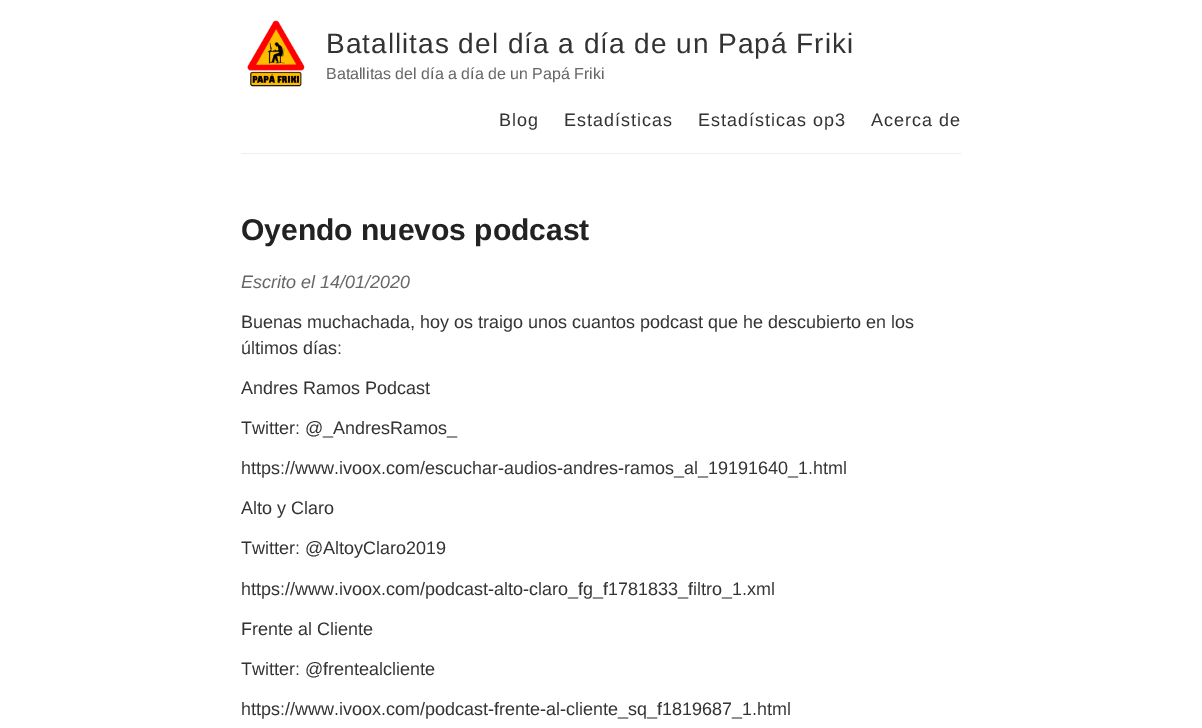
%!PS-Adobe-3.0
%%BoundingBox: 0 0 1202 728
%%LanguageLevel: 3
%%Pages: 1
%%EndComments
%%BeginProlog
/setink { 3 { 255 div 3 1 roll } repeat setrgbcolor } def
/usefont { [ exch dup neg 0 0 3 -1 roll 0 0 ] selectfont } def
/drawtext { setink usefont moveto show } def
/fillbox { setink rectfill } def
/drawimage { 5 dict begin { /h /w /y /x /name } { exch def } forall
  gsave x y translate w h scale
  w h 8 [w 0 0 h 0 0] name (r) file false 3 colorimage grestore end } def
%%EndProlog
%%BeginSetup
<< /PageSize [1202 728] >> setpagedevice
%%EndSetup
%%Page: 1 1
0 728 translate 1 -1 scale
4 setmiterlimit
0 0 1202 728 255 255 255 fillbox
241 153 720 1 238 238 238 fillbox
(assets/img1.rgb) 247 20 58 67 drawimage
/LiberationSans-Regular 28 usefont
51 51 51 setink
326 53 moveto 1 0 (Batallitas del día a día de un Papá Friki) ashow
(Batallitas del día a día de un Papá Friki) 326 79 /LiberationSans-Regular 16 102 102 102 drawtext
/LiberationSans-Regular 18 usefont
51 51 51 setink
499 126 moveto 1 0 (Blog) ashow
564 126 moveto 1 0 (Estadísticas) ashow
698 126 moveto 1 0 (Estadísticas op3) ashow
871 126 moveto 1 0 (Acerca de) ashow
(Oyendo nuevos podcast) 241 240 /LiberationSans-Bold 30 34 34 34 drawtext
(Escrito el 14/01/2020) 241 288 /LiberationSans-Italic 18 102 102 102 drawtext
(Buenas muchachada, hoy os traigo unos cuantos podcast que he descubierto en los) 241 328 /LiberationSans-Regular 18 51 51 51 drawtext
(últimos días:) 241 354 /LiberationSans-Regular 18 51 51 51 drawtext
(Andres Ramos Podcast) 241 394 /LiberationSans-Regular 18 51 51 51 drawtext
(Twitter: @_AndresRamos_) 241 434 /LiberationSans-Regular 18 51 51 51 drawtext
(https://www.ivoox.com/escuchar-audios-andres-ramos_al_19191640_1.html) 241 474 /LiberationSans-Regular 18 51 51 51 drawtext
(Alto y Claro) 241 514 /LiberationSans-Regular 18 51 51 51 drawtext
(Twitter: @AltoyClaro2019) 241 554 /LiberationSans-Regular 18 51 51 51 drawtext
(https://www.ivoox.com/podcast-alto-claro_fg_f1781833_filtro_1.xml) 241 595 /LiberationSans-Regular 18 51 51 51 drawtext
(Frente al Cliente) 241 635 /LiberationSans-Regular 18 51 51 51 drawtext
(Twitter: @frentealcliente) 241 675 /LiberationSans-Regular 18 51 51 51 drawtext
(https://www.ivoox.com/podcast-frente-al-cliente_sq_f1819687_1.html) 241 715 /LiberationSans-Regular 18 51 51 51 drawtext
showpage
%%EOF
